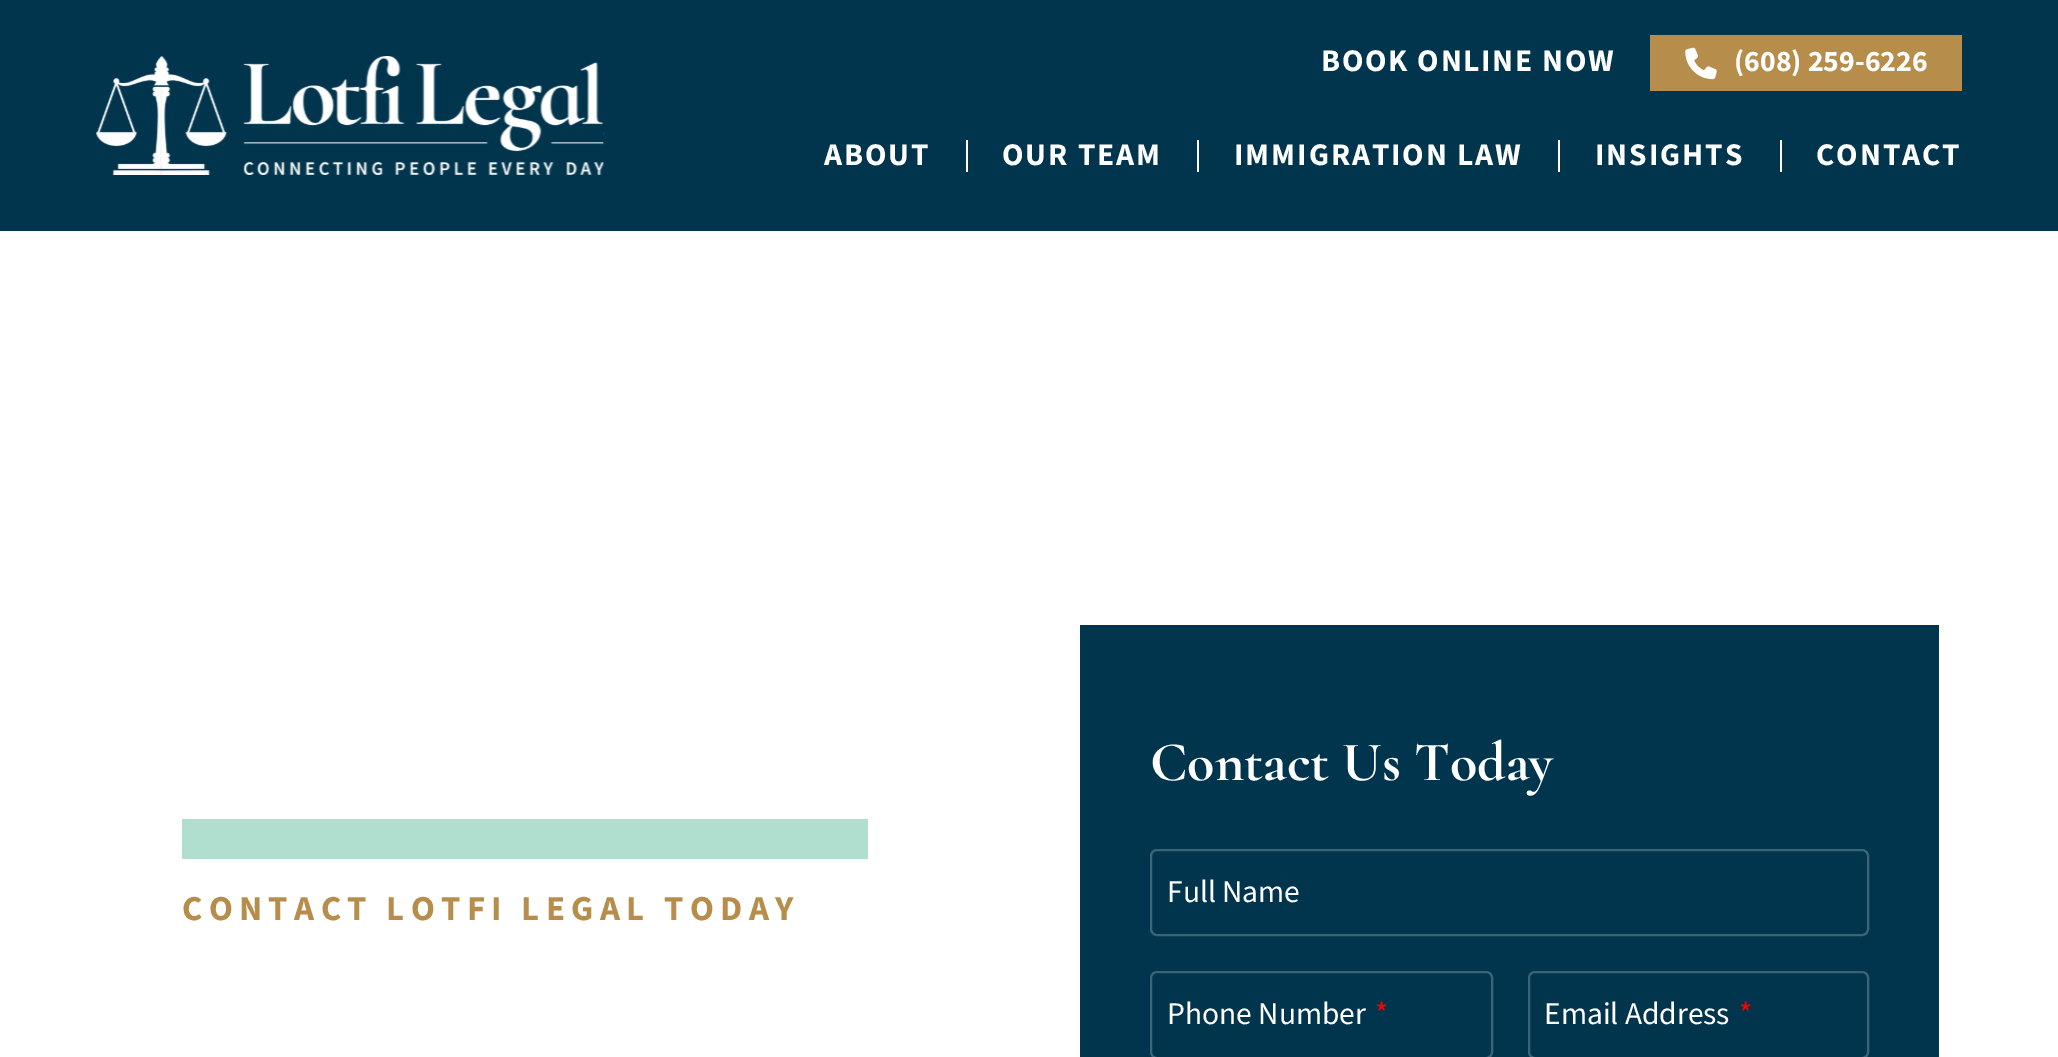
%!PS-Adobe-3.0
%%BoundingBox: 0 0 2058 1057
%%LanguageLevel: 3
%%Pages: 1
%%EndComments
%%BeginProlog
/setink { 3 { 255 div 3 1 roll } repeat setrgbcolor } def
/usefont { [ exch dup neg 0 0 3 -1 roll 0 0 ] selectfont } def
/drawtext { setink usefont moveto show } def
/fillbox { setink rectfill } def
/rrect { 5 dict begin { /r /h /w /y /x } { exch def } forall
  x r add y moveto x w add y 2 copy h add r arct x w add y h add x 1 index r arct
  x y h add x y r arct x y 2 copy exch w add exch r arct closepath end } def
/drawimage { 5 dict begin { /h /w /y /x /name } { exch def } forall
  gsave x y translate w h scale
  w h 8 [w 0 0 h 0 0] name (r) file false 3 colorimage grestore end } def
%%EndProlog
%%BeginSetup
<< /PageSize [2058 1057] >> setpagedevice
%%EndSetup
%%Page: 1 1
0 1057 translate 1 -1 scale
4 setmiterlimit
0 0 2058 1057 255 255 255 fillbox
0 0 2058 231 0 53 77 fillbox
(assets/img1.rgb) 96 56 509 119 drawimage
/SourceSans3-ExtraLight 31.5 usefont
255 255 255 setink
1321 71 moveto 1.7 0 (BOOK ONLINE NOW) ashow
1650 35 312 56 183 141 75 fillbox
(assets/img2.rgb) 1685 47 32 33 drawimage
(\(608\) 259-6226) 1734 71 /SourceSans3-ExtraLight 29.75 255 255 255 drawtext
/SourceSans3-ExtraLight 31.5 usefont
824 165 moveto 1.9 0 (ABOUT) ashow
966 140 2 32 255 255 255 fillbox
1002 165 moveto 1.9 0 (OUR TEAM) ashow
1197 140 2 32 255 255 255 fillbox
1234 165 moveto 1.9 0 (IMMIGRATION LAW) ashow
1558 140 2 32 255 255 255 fillbox
1595 165 moveto 1.9 0 (INSIGHTS) ashow
1780 140 2 32 255 255 255 fillbox
1816 165 moveto 1.9 0 (CONTACT) ashow
182 819 686 40 176 223 207 fillbox
/SourceSans3-ExtraLight 35 usefont
183 141 75 setink
182 920 moveto 6.3 0 (CONTACT LOTFI LEGAL TODAY) ashow
1080 625 859 432 0 53 77 fillbox
(Contact Us Today) 1150 780 /Cormorant-Light 56 255 255 255 drawtext
60 100 118 setink
2 setlinewidth
1151 850 717 85 6 rrect stroke
(Full Name) 1167 902 /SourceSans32-ExtraLight 31.5 255 255 255 drawtext
60 100 118 setink
1151 972 341 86 6 rrect stroke
(Phone Number) 1167 1024 /SourceSans32-ExtraLight 31.5 255 255 255 drawtext
(*) 1375 1024 /SourceSans32-ExtraLight 31.5 255 0 0 drawtext
60 100 118 setink
1529 972 339 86 6 rrect stroke
(Email Address) 1544 1024 /SourceSans32-ExtraLight 31.5 255 255 255 drawtext
(*) 1739 1024 /SourceSans32-ExtraLight 31.5 255 0 0 drawtext
showpage
%%EOF
